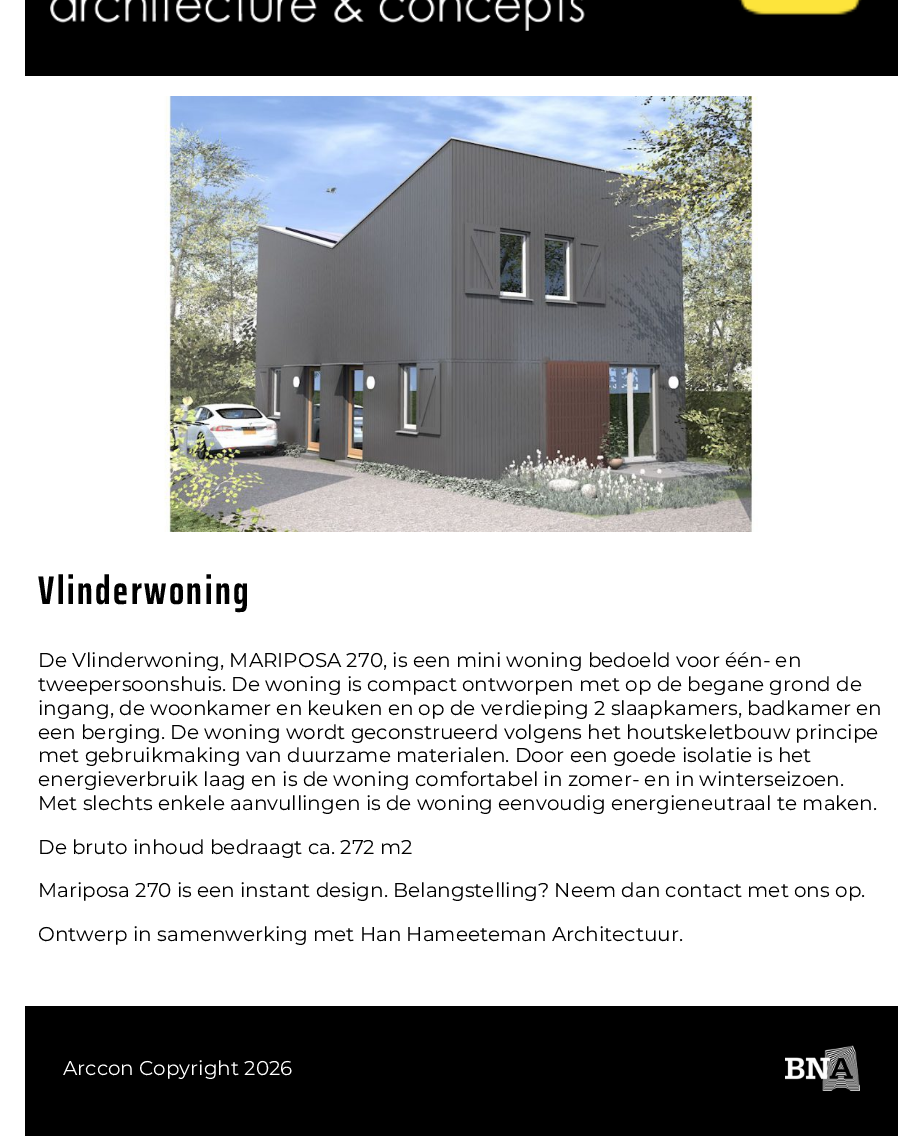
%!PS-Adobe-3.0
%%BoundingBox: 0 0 922 1136
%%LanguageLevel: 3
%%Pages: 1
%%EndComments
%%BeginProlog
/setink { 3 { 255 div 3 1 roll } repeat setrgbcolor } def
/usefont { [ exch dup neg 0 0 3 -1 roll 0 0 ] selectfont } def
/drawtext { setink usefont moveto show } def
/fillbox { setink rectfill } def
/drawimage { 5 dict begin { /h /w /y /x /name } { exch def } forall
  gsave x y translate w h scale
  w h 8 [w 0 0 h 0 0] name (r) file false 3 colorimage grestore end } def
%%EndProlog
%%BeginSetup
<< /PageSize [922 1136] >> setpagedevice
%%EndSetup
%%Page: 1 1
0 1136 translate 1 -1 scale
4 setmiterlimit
0 0 922 1136 255 255 255 fillbox
25 0 873 76 0 0 0 fillbox
(assets/img1.rgb) 50 0 535 31 drawimage
(assets/img2.rgb) 738 0 124 15 drawimage
(assets/img3.rgb) 164 96 594 436 drawimage
/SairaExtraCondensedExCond-Bold 40 usefont
38 604 moveto 2.5 0 (Vlinderwoning) ashow
(De Vlinderwoning, MARIPOSA 270, is een mini woning bedoeld voor één- en) 38 667 /Montserrat-Thin 20 0 0 0 drawtext
(tweepersoonshuis. De woning is compact ontworpen met op de begane grond de) 38 691 /Montserrat-Thin 20 0 0 0 drawtext
(ingang, de woonkamer en keuken en op de verdieping 2 slaapkamers, badkamer en) 38 715 /Montserrat-Thin 20 0 0 0 drawtext
(een berging. De woning wordt geconstrueerd volgens het houtskeletbouw principe) 38 739 /Montserrat-Thin 20 0 0 0 drawtext
(met gebruikmaking van duurzame materialen. Door een goede isolatie is het) 38 762 /Montserrat-Thin 20 0 0 0 drawtext
(energieverbruik laag en is de woning comfortabel in zomer- en in winterseizoen.) 38 786 /Montserrat-Thin 20 0 0 0 drawtext
(Met slechts enkele aanvullingen is de woning eenvoudig energieneutraal te maken.) 38 810 /Montserrat-Thin 20 0 0 0 drawtext
(De bruto inhoud bedraagt ca. 272 m2) 38 854 /Montserrat-Thin 20 0 0 0 drawtext
(Mariposa 270 is een instant design. Belangstelling? Neem dan contact met ons op.) 38 897 /Montserrat-Thin 20 0 0 0 drawtext
(Ontwerp in samenwerking met Han Hameeteman Architectuur.) 38 941 /Montserrat-Thin 20 0 0 0 drawtext
25 1006 873 130 0 0 0 fillbox
(Arccon Copyright 2026) 63 1075 /Montserrat-Thin 20 255 255 255 drawtext
(assets/img4.rgb) 785 1045 75 46 drawimage
showpage
%%EOF
